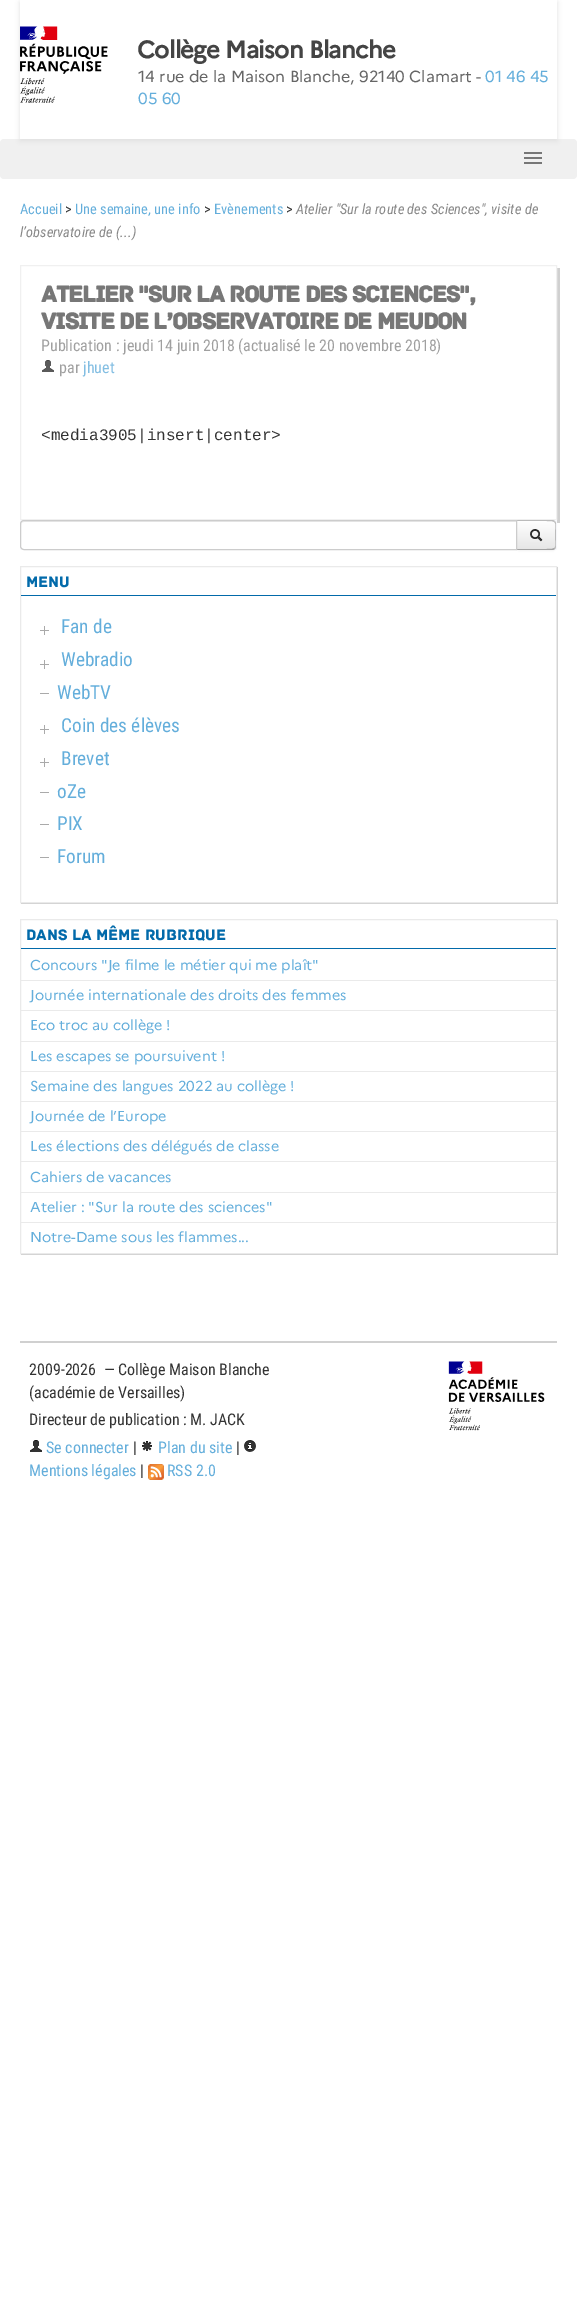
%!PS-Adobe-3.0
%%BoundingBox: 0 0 577 2308
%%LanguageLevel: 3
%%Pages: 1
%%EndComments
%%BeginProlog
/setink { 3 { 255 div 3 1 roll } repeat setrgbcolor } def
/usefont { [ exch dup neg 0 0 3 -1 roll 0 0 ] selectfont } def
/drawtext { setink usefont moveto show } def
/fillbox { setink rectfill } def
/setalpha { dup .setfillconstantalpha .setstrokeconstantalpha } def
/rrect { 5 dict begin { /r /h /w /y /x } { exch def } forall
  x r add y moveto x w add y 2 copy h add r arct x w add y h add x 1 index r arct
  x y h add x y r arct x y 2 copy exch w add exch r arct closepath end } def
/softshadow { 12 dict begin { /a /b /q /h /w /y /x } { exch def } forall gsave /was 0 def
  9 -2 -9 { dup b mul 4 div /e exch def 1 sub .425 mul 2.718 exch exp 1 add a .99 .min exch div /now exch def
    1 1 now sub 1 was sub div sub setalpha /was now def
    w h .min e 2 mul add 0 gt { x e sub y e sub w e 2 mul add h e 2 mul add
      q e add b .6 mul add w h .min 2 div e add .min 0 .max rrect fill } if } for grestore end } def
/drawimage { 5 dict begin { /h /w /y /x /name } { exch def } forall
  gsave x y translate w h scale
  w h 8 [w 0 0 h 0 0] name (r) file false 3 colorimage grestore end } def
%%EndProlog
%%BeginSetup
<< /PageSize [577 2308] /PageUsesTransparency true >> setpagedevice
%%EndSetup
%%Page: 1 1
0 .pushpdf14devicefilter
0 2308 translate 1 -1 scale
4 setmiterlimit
0 0 577 2308 255 255 255 fillbox
240 240 240 setink
0 139 577 40 4 rrect fill
gsave
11 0 moveto 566 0 lineto 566 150 lineto 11 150 lineto closepath 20 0 moveto 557 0 lineto 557 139 lineto 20 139 lineto closepath eoclip newpath
224 224 224 setink
20 2 537 139 0 2.5 1 softshadow
grestore
(assets/img1.rgb) 20 26 88 77 drawimage
/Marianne-Bold 24 usefont
68 68 68 setink
137 58 moveto -0.75 0 (Collège Maison Blanche) ashow
(14 rue de la Maison Blanche, 92140 Clamart -) 138 82 /Marianne-Regular 16 102 102 102 drawtext
(01 46 45) 485 82 /Marianne-Regular 16 100 174 219 drawtext
(05 60) 138 104 /Marianne-Regular 16 100 174 219 drawtext
524 152 18 2 119 119 119 fillbox
524 157 18 2 119 119 119 fillbox
524 162 18 2 119 119 119 fillbox
(Accueil) 20 214 /RobotoCondensed-Regular 14.4 100 174 219 drawtext
(>) 65 214 /RobotoCondensed-Regular 14.4 51 51 51 drawtext
(Une semaine, une info) 75 214 /RobotoCondensed-Regular 14.4 100 174 219 drawtext
(>) 204 214 /RobotoCondensed-Regular 14.4 51 51 51 drawtext
(Evènements) 214 214 /RobotoCondensed-Regular 14.4 100 174 219 drawtext
(>) 286 214 /RobotoCondensed-Regular 14.4 51 51 51 drawtext
(Atelier "Sur la route des Sciences", visite de) 296 214 /RobotoCondensed-Italic 14.4 136 136 136 drawtext
(l’observatoire de \(...\)) 20 237 /RobotoCondensed-Italic 14.4 136 136 136 drawtext
208 208 208 setink
23 520 moveto 23 523 lineto 560 523 lineto 560 268 lineto 557 268 lineto 557 520 lineto closepath fill
240 240 240 setink
20.5 265.5 536 254 rectstroke
/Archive-Bold 24 usefont
119 119 119 setink
41 302 moveto -1.15 0 (Atelier "Sur la route des Sciences",) ashow
41 329 moveto -1.15 0 (visite de l’observatoire de Meudon) ashow
(Publication : jeudi 14 juin 2018 \(actualisé le 20 novembre 2018\)) 41 351 /RobotoCondensed-Regular 16 160 160 160 drawtext
(assets/img2.rgb) 42 360 12 12 drawimage
(par) 59 373 /RobotoCondensed-Regular 16 160 160 160 drawtext
(jhuet) 83 373 /RobotoCondensed-Regular 16 131 190 226 drawtext
(<media3905|insert|center>) 41 440 /LiberationMono-Regular 16 51 51 51 drawtext
20 520 537 30 249 250 253 fillbox
0 0 0 setink
516 521 40 30 4 1 0.05 softshadow
gsave
516 520 moveto 552 520 lineto 554 520 556 522 556 524 curveto 556 546 lineto 556 548 554 550 552 550 curveto 516 550 lineto closepath clip newpath
gsave 517 521 moveto 556 521 lineto 556 549 lineto 517 549 lineto closepath clip newpath
<< /ShadingType 2 /ColorSpace /DeviceRGB /Coords [536 521 536 549] /Extend [true true] /Function << /FunctionType 2 /Domain [0 1] /C0 [1 1 1] /C1 [0.902 0.902 0.902] /N 1 >> >> shfill grestore
grestore
187 187 187 setink
516 520 moveto 517 521 lineto 546 521 lineto 550.5 521 553 521 554 522 curveto 555 521 lineto 554 520.5 553 520 552 520 curveto closepath fill
556 546 moveto 556 524 lineto 556 523 555.5 522 555 521 curveto 554 522 lineto 555 522.5 555 523.5 555.5 524 curveto 555 535 lineto 555.5 546 lineto 555 546.5 555 547.5 554 548 curveto 555 549 lineto 555.5 548 556 547 556 546 curveto closepath fill
162 162 162 setink
552 550 moveto 553 550 554 549.5 555 549 curveto 554 548 lineto 553 549 550.5 549 546 549 curveto 517 549 lineto 516 550 lineto closepath fill
255 255 255 setink
24 520 moveto 517 520 lineto 517 550 lineto 24 550 lineto 22 550 20 548 20 546 curveto 20 524 lineto 20 522 22 520 24 520 curveto closepath fill
236 236 236 setink
24 522 moveto 516 522 lineto 516 521 lineto 24 521 lineto 22 521 21 523 21 525 curveto 21 523 22 522 24 522 curveto closepath fill
204 204 204 setink
24 520.5 moveto 516.5 520.5 lineto 516.5 549.5 lineto 24 549.5 lineto 22 549.5 20.5 548 20.5 546 curveto 20.5 524 lineto 20.5 522 22 520.5 24 520.5 curveto closepath stroke
(assets/img3.rgb) 530 529 13 13 drawimage
21 903 moveto 21 904 lineto 558 904 lineto 558 567 lineto 557 567 lineto 557 903 lineto closepath fill
234 234 234 setink
20.5 566.5 536 336 rectstroke
21 595 535 1 2 106 170 fillbox
(Menu) 26 587 /Archive-Regular 16 2 106 170 drawtext
(assets/img4.rgb) 40 626 9 9 drawimage
(Fan de) 61 633 /RobotoCondensed-Regular 19.25 100 174 219 drawtext
(assets/img4.rgb) 40 660 9 9 drawimage
(Webradio) 61 666 /RobotoCondensed-Regular 19.25 100 174 219 drawtext
(WebTV) 57 699 /RobotoCondensed-Regular 19.25 100 174 219 drawtext
40 693 9 1 170 170 170 fillbox
(assets/img4.rgb) 40 725 9 9 drawimage
(Coin des élèves) 61 732 /RobotoCondensed-Regular 19.25 100 174 219 drawtext
(assets/img4.rgb) 40 758 9 9 drawimage
(Brevet) 61 765 /RobotoCondensed-Regular 19.25 100 174 219 drawtext
(oZe) 57 798 /RobotoCondensed-Regular 19.25 100 174 219 drawtext
40 792 9 1 170 170 170 fillbox
(PIX) 57 830 /RobotoCondensed-Regular 19.25 100 174 219 drawtext
40 824 9 1 170 170 170 fillbox
(Forum) 57 863 /RobotoCondensed-Regular 19.25 100 174 219 drawtext
40 857 9 1 170 170 170 fillbox
204 204 204 setink
21 1254 moveto 21 1255 lineto 558 1255 lineto 558 920 lineto 557 920 lineto 557 1254 lineto closepath fill
234 234 234 setink
20.5 919.5 536 334 rectstroke
21 948 535 1 2 106 170 fillbox
(Dans la même rubrique) 26 940 /Archive-Regular 16 2 106 170 drawtext
(Concours "Je filme le métier qui me plaît") 30 970 /Marianne-Regular 14.4 100 174 219 drawtext
21 980 535 1 234 234 234 fillbox
(Journée internationale des droits des femmes) 30 1000 /Marianne-Regular 14.4 100 174 219 drawtext
21 1010 535 1 234 234 234 fillbox
(Eco troc au collège !) 30 1030 /Marianne-Regular 14.4 100 174 219 drawtext
21 1041 535 1 234 234 234 fillbox
(Les escapes se poursuivent !) 30 1061 /Marianne-Regular 14.4 100 174 219 drawtext
21 1071 535 1 234 234 234 fillbox
(Semaine des langues 2022 au collège !) 30 1091 /Marianne-Regular 14.4 100 174 219 drawtext
21 1101 535 1 234 234 234 fillbox
(Journée de l’Europe) 30 1121 /Marianne-Regular 14.4 100 174 219 drawtext
21 1131 535 1 234 234 234 fillbox
(Les élections des délégués de classe) 30 1151 /Marianne-Regular 14.4 100 174 219 drawtext
21 1161 535 1 234 234 234 fillbox
(Cahiers de vacances) 30 1182 /Marianne-Regular 14.4 100 174 219 drawtext
21 1192 535 1 234 234 234 fillbox
(Atelier : "Sur la route des sciences") 30 1212 /Marianne-Regular 14.4 100 174 219 drawtext
21 1222 535 1 234 234 234 fillbox
(Notre-Dame sous les flammes...) 30 1242 /Marianne-Regular 14.4 100 174 219 drawtext
20 1341 537 2 208 208 208 fillbox
(2009-2026  — Collège Maison Blanche) 29 1375 /RobotoCondensed-Regular 16 51 51 51 drawtext
(\(académie de Versailles\)) 29 1398 /RobotoCondensed-Regular 16 51 51 51 drawtext
(Directeur de publication : M. JACK) 29 1425 /RobotoCondensed-Regular 16 51 51 51 drawtext
(assets/img5.rgb) 30 1440 12 12 drawimage
(Se connecter) 46 1453 /RobotoCondensed-Regular 16 100 174 219 drawtext
(|) 133 1453 /RobotoCondensed-Regular 16 51 51 51 drawtext
(assets/img6.rgb) 142 1441 10 10 drawimage
(Plan du site) 158 1453 /RobotoCondensed-Regular 16 100 174 219 drawtext
(|) 236 1453 /RobotoCondensed-Regular 16 51 51 51 drawtext
(assets/img7.rgb) 244 1440 12 12 drawimage
(Mentions légales) 29 1476 /RobotoCondensed-Regular 16 100 174 219 drawtext
(|) 140 1476 /RobotoCondensed-Regular 16 51 51 51 drawtext
(assets/img8.rgb) 148 1464 16 16 drawimage
(RSS 2.0) 167 1476 /RobotoCondensed-Regular 16 100 174 219 drawtext
(assets/img9.rgb) 448 1361 97 70 drawimage
.poppdf14devicefilter showpage
%%EOF
